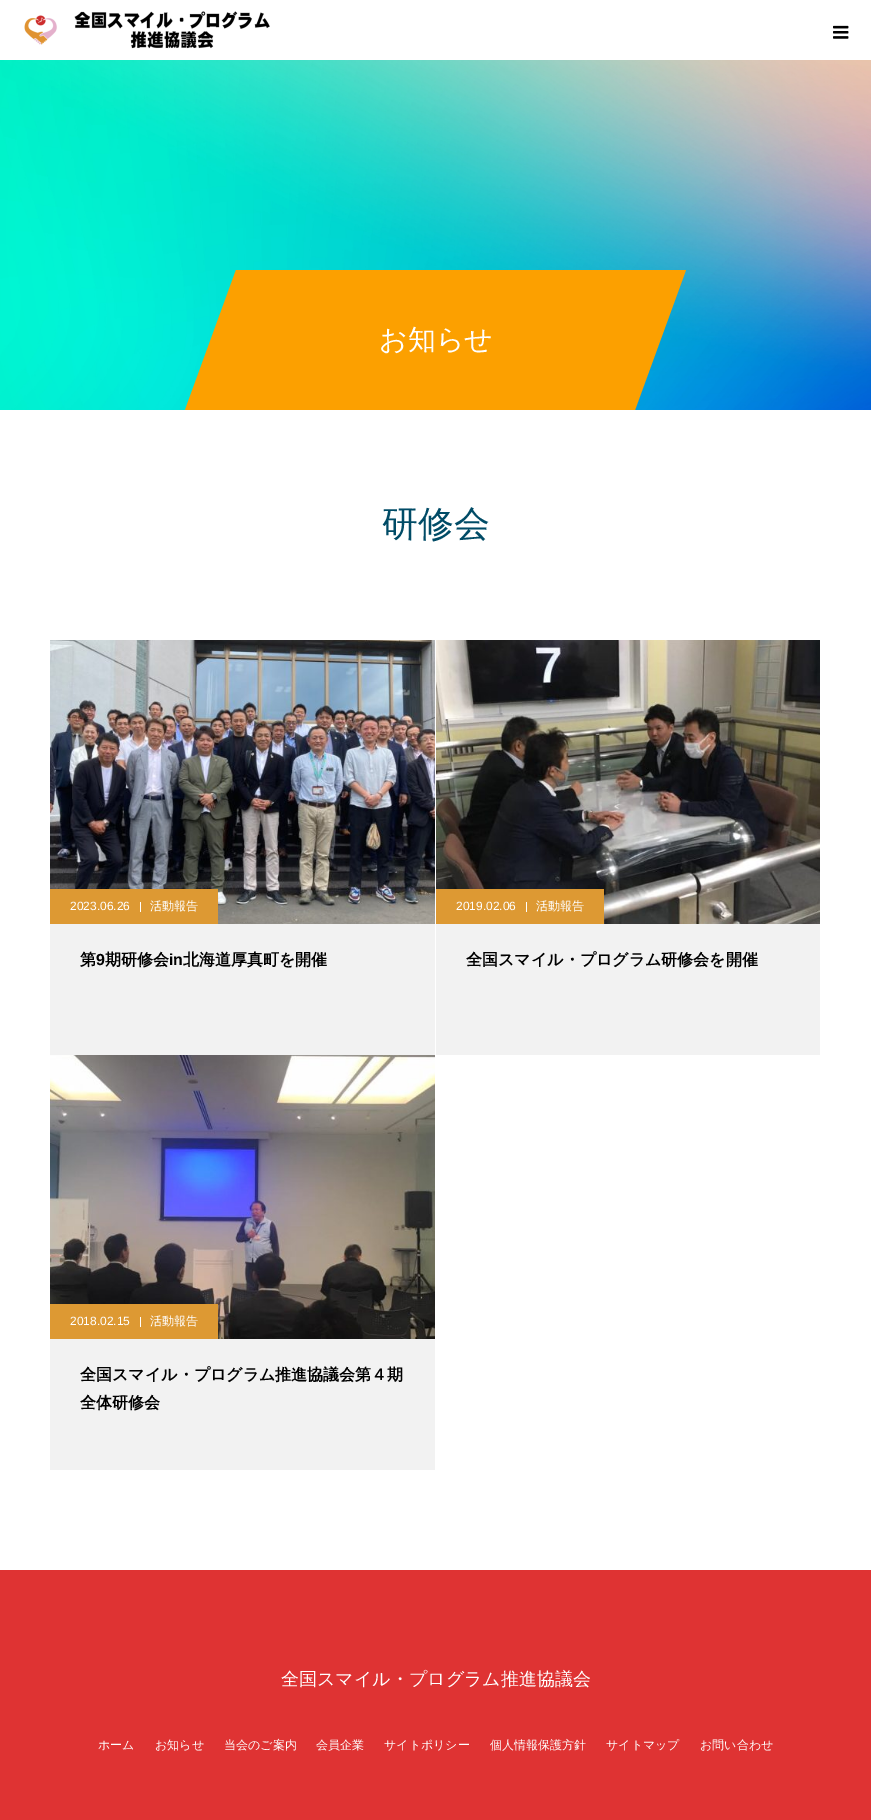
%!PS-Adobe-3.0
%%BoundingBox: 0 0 871 1820
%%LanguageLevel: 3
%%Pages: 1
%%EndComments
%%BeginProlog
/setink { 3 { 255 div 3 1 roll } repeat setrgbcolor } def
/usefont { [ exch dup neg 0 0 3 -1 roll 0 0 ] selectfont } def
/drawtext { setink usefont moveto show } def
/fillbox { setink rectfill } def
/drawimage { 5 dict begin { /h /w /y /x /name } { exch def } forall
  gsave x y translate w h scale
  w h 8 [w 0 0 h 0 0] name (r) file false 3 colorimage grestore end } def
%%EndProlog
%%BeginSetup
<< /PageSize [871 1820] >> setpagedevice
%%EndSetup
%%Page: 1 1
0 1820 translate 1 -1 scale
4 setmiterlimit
0 0 871 1820 255 255 255 fillbox
(assets/img1.rgb) 24 11 246 38 drawimage
(assets/img2.rgb) 833 25 16 14 drawimage
(assets/img3.rgb) 0 60 871 350 drawimage
252 160 0 setink
236 270 moveto 686 270 lineto 635 410 lineto 185 410 lineto closepath fill
(お知らせ) 379 349 /WenQuanYiZenHei-Medium 28 255 255 255 drawtext
(研修会) 382 536 /WenQuanYiZenHei-Medium 36 0 75 102 drawtext
(assets/img4.rgb) 50 640 385 284 drawimage
50 889 168 35 221 153 51 fillbox
(2023.06.26) 70 910 /LiberationSans-Regular 12 255 255 255 drawtext
140 902 1 10 255 255 255 fillbox
(活動報告) 150 910 /WenQuanYiZenHei-Medium 12 255 255 255 drawtext
50 924 385 131 242 242 242 fillbox
(第) 80 965 /WenQuanYiZenHei-Bold 16 0 0 0 drawtext
(9) 96 965 /LiberationSans-Bold 16 0 0 0 drawtext
(期研修会) 105 965 /WenQuanYiZenHei-Bold 16 0 0 0 drawtext
(in) 169 965 /LiberationSans-Bold 16 0 0 0 drawtext
(北海道厚真町を開催) 183 965 /WenQuanYiZenHei-Bold 16 0 0 0 drawtext
(assets/img5.rgb) 436 640 384 284 drawimage
436 889 168 35 221 153 51 fillbox
(2019.02.06) 456 910 /LiberationSans-Regular 12 255 255 255 drawtext
526 902 1 10 255 255 255 fillbox
(活動報告) 536 910 /WenQuanYiZenHei-Medium 12 255 255 255 drawtext
436 924 384 131 242 242 242 fillbox
(全国スマイル・プログラム研修会を開催) 466 965 /WenQuanYiZenHei-Bold 16 0 0 0 drawtext
(assets/img6.rgb) 50 1055 385 284 drawimage
50 1304 168 35 221 153 51 fillbox
(2018.02.15) 70 1325 /LiberationSans-Regular 12 255 255 255 drawtext
140 1317 1 10 255 255 255 fillbox
(活動報告) 150 1325 /WenQuanYiZenHei-Medium 12 255 255 255 drawtext
50 1339 385 131 242 242 242 fillbox
(全国スマイル・プログラム推進協議会第４期) 80 1380 /WenQuanYiZenHei-Bold 16 0 0 0 drawtext
(全体研修会) 80 1408 /WenQuanYiZenHei-Bold 16 0 0 0 drawtext
0 1570 871 250 223 51 51 fillbox
(全国スマイル・プログラム推進協議会) 281 1685 /WenQuanYiZenHei-Medium 18 255 255 255 drawtext
(ホーム) 98 1749 /WenQuanYiZenHei-Medium 12 255 255 255 drawtext
(お知らせ) 155 1749 /WenQuanYiZenHei-Medium 12 255 255 255 drawtext
(当会のご案内) 224 1749 /WenQuanYiZenHei-Medium 12 255 255 255 drawtext
(会員企業) 316 1749 /WenQuanYiZenHei-Medium 12 255 255 255 drawtext
(サイトポリシー) 384 1749 /WenQuanYiZenHei-Medium 12 255 255 255 drawtext
(個人情報保護方針) 490 1749 /WenQuanYiZenHei-Medium 12 255 255 255 drawtext
(サイトマップ) 606 1749 /WenQuanYiZenHei-Medium 12 255 255 255 drawtext
(お問い合わせ) 700 1749 /WenQuanYiZenHei-Medium 12 255 255 255 drawtext
showpage
%%EOF
